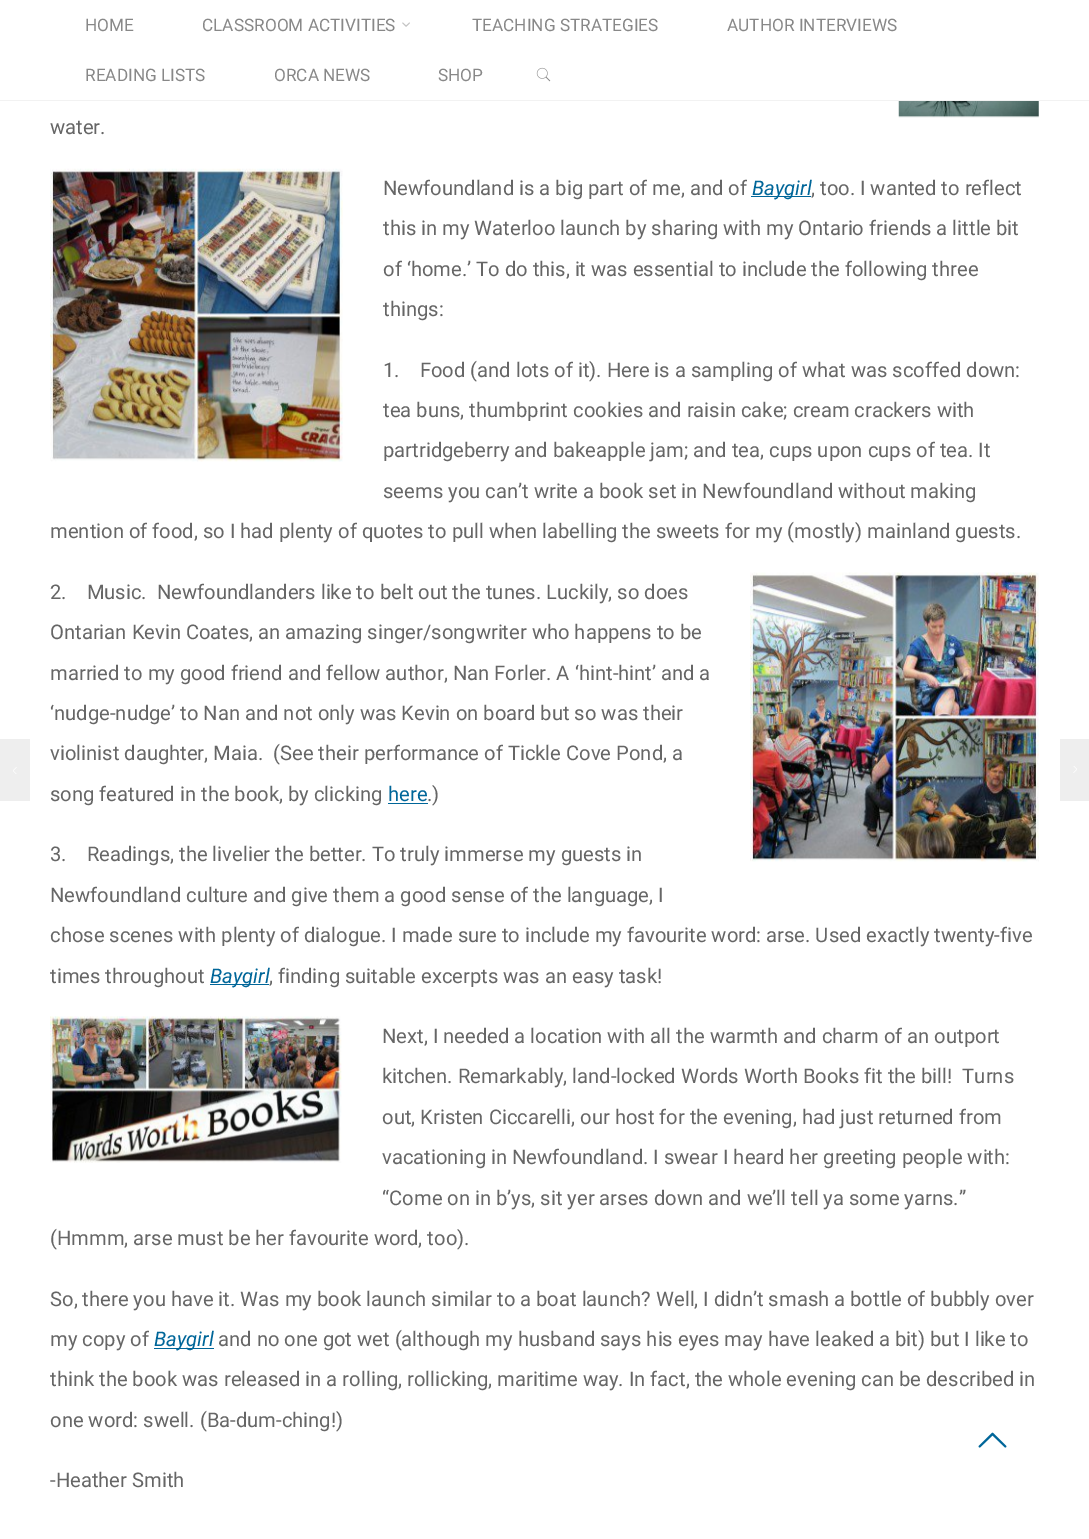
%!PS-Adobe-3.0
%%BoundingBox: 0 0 1089 1539
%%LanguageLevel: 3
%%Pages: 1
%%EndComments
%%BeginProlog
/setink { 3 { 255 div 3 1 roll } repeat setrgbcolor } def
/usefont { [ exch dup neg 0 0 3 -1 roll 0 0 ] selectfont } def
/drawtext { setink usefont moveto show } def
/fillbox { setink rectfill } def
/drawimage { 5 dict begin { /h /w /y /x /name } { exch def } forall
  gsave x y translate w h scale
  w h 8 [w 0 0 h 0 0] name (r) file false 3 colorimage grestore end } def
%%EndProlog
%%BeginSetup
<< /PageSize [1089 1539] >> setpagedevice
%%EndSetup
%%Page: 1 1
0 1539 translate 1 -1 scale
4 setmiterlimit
0 0 1089 1539 255 255 255 fillbox
0 100 1089 1 242 242 242 fillbox
(HOME) 85 31 /Roboto-Regular 17.2 136 136 136 drawtext
(CLASSROOM ACTIVITIES) 202 31 /Roboto-Regular 17.2 136 136 136 drawtext
(assets/img1.rgb) 402 22 8 5 drawimage
(TEACHING STRATEGIES) 472 31 /Roboto-Regular 17.2 136 136 136 drawtext
(AUTHOR INTERVIEWS) 727 31 /Roboto-Regular 17.2 136 136 136 drawtext
(READING LISTS) 85 81 /Roboto-Regular 17.2 136 136 136 drawtext
(ORCA NEWS) 274 81 /Roboto-Regular 17.2 136 136 136 drawtext
(SHOP) 438 81 /Roboto-Regular 17.2 136 136 136 drawtext
(assets/img2.rgb) 536 67 15 15 drawimage
(assets/img3.rgb) 898 101 141 17 drawimage
(water.) 50 134 /Roboto-Regular 20.2 102 102 102 drawtext
(assets/img4.rgb) 50 168 293 294 drawimage
(Newfoundland is a big part of me, and of) 383 195 /Roboto-Regular 20.2 102 102 102 drawtext
751 196 60 1 0 102 153 fillbox
(Baygirl) 752 195 /Roboto-Italic 20.2 0 102 153 drawtext
(, too. I wanted to reflect) 811 195 /Roboto-Regular 20.2 102 102 102 drawtext
(this in my Waterloo launch by sharing with my Ontario friends a little bit) 383 235 /Roboto-Regular 20.2 102 102 102 drawtext
(of ‘home.’ To do this, it was essential to include the following three) 383 276 /Roboto-Regular 20.2 102 102 102 drawtext
(things:) 383 316 /Roboto-Regular 20.2 102 102 102 drawtext
(1.    Food \(and lots of it\). Here is a sampling of what was scoffed down:) 383 377 /Roboto-Regular 20.2 102 102 102 drawtext
(tea buns, thumbprint cookies and raisin cake; cream crackers with) 383 417 /Roboto-Regular 20.2 102 102 102 drawtext
(partridgeberry and bakeapple jam; and tea, cups upon cups of tea. It) 383 457 /Roboto-Regular 20.2 102 102 102 drawtext
(seems you can’t write a book set in Newfoundland without making) 383 498 /Roboto-Regular 20.2 102 102 102 drawtext
(mention of food, so I had plenty of quotes to pull when labelling the sweets for my \(mostly\) mainland guests.) 50 538 /Roboto-Regular 20.2 102 102 102 drawtext
(2.    Music.  Newfoundlanders like to belt out the tunes. Luckily, so does) 50 599 /Roboto-Regular 20.2 102 102 102 drawtext
(assets/img5.rgb) 750 572 289 290 drawimage
(Ontarian Kevin Coates, an amazing singer/songwriter who happens to be) 50 639 /Roboto-Regular 20.2 102 102 102 drawtext
(married to my good friend and fellow author, Nan Forler. A ‘hint-hint’ and a) 50 680 /Roboto-Regular 20.2 102 102 102 drawtext
(‘nudge-nudge’ to Nan and not only was Kevin on board but so was their) 50 720 /Roboto-Regular 20.2 102 102 102 drawtext
(violinist daughter, Maia.  \(See their performance of Tickle Cove Pond, a) 50 760 /Roboto-Regular 20.2 102 102 102 drawtext
(song featured in the book, by clicking) 50 801 /Roboto-Regular 20.2 102 102 102 drawtext
(here) 388 801 /Roboto-Regular 20.2 0 102 153 drawtext
388 803 40 1 0 102 153 fillbox
(.\)) 427 801 /Roboto-Regular 20.2 102 102 102 drawtext
(3.    Readings, the livelier the better. To truly immerse my guests in) 50 861 /Roboto-Regular 20.2 102 102 102 drawtext
(Newfoundland culture and give them a good sense of the language, I) 50 902 /Roboto-Regular 20.2 102 102 102 drawtext
(chose scenes with plenty of dialogue. I made sure to include my favourite word: arse. Used exactly twenty-five) 50 942 /Roboto-Regular 20.2 102 102 102 drawtext
(times throughout) 50 983 /Roboto-Regular 20.2 102 102 102 drawtext
210 984 59 1 0 102 153 fillbox
(Baygirl) 210 983 /Roboto-Italic 20.2 0 102 153 drawtext
(, finding suitable excerpts was an easy task!) 269 983 /Roboto-Regular 20.2 102 102 102 drawtext
(assets/img6.rgb) 50 1016 292 147 drawimage
(Next, I needed a location with all the warmth and charm of an outport) 382 1043 /Roboto-Regular 20.2 102 102 102 drawtext
(kitchen. Remarkably, land-locked Words Worth Books fit the bill!  Turns) 382 1083 /Roboto-Regular 20.2 102 102 102 drawtext
(out, Kristen Ciccarelli, our host for the evening, had just returned from) 382 1124 /Roboto-Regular 20.2 102 102 102 drawtext
(vacationing in Newfoundland. I swear I heard her greeting people with:) 382 1164 /Roboto-Regular 20.2 102 102 102 drawtext
(“Come on in b’ys, sit yer arses down and we’ll tell ya some yarns.”) 382 1205 /Roboto-Regular 20.2 102 102 102 drawtext
(\(Hmmm, arse must be her favourite word, too\).) 50 1245 /Roboto-Regular 20.2 102 102 102 drawtext
(So, there you have it. Was my book launch similar to a boat launch? Well, I didn’t smash a bottle of bubbly over) 50 1306 /Roboto-Regular 20.2 102 102 102 drawtext
(my copy of) 50 1346 /Roboto-Regular 20.2 102 102 102 drawtext
154 1348 60 1 0 102 153 fillbox
(Baygirl) 154 1346 /Roboto-Italic 20.2 0 102 153 drawtext
(and no one got wet \(although my husband says his eyes may have leaked a bit\) but I like to) 218 1346 /Roboto-Regular 20.2 102 102 102 drawtext
(think the book was released in a rolling, rollicking, maritime way. In fact, the whole evening can be described in) 50 1386 /Roboto-Regular 20.2 102 102 102 drawtext
(one word: swell. \(Ba-dum-ching!\)) 50 1427 /Roboto-Regular 20.2 102 102 102 drawtext
(-Heather Smith) 50 1487 /Roboto-Regular 20.2 102 102 102 drawtext
0 739 30 62 238 238 238 fillbox
(assets/img7.rgb) 13 767 4 7 drawimage
1060 739 29 62 238 238 238 fillbox
(assets/img8.rgb) 1073 766 4 7 drawimage
(assets/img9.rgb) 978 1432 29 16 drawimage
showpage
%%EOF
